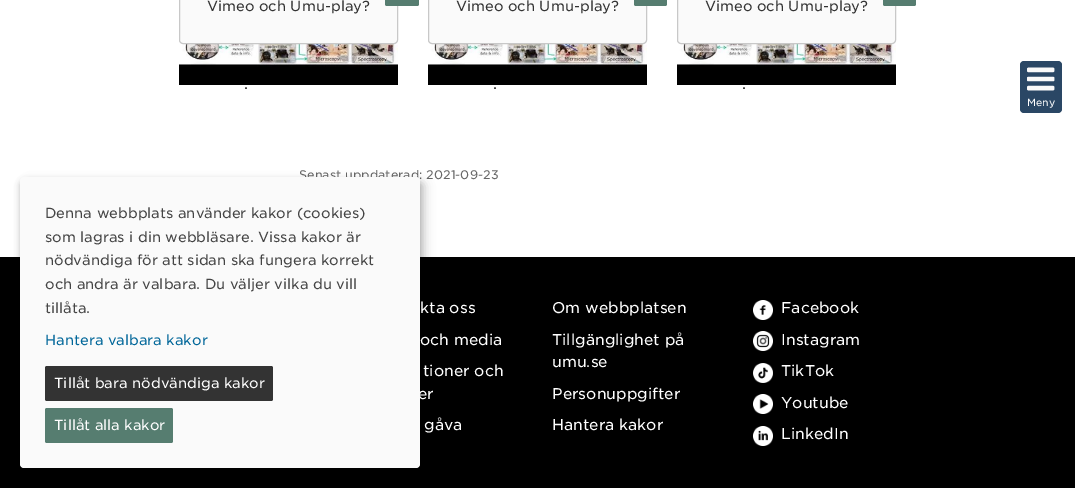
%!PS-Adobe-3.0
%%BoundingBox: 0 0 1075 488
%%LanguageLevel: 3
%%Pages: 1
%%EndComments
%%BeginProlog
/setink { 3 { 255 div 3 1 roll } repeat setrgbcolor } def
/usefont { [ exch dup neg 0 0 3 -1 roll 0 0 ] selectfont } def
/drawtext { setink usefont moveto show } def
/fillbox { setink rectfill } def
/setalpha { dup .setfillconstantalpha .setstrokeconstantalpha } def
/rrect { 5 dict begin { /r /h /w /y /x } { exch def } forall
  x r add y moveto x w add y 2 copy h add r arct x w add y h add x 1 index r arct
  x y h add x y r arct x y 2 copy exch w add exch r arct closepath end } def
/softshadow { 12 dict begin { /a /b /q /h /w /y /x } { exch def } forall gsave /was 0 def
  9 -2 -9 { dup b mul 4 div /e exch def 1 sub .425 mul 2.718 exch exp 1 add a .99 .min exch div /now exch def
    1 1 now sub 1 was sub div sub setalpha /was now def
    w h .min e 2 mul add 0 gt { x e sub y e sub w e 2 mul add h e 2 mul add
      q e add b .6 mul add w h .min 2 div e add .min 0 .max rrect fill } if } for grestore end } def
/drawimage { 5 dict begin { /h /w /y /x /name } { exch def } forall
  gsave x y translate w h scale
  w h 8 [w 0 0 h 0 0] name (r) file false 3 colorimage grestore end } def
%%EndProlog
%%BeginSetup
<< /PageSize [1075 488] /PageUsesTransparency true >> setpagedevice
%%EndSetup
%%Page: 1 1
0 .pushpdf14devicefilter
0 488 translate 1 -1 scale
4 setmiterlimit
0 0 1075 488 255 255 255 fillbox
(assets/img1.rgb) 179 40 219 45 drawimage
250 250 250 setink
179.5 -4.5 218 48 3.5 rrect gsave fill grestore
200 200 200 setink
stroke
(Vimeo och Umu-play?) 207 11 /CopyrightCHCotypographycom-Light 14 51 51 51 drawtext
86 125 112 setink
385 -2 34 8 2 rrect fill
(.) 244 89 /CopyrightCHCotypographycom-Light 15 0 0 0 drawtext
(assets/img1.rgb) 428 40 219 45 drawimage
250 250 250 setink
428.5 -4.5 218 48 3.5 rrect gsave fill grestore
200 200 200 setink
stroke
(Vimeo och Umu-play?) 456 11 /CopyrightCHCotypographycom-Light 14 51 51 51 drawtext
86 125 112 setink
634 -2 33 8 2 rrect fill
(.) 493 89 /CopyrightCHCotypographycom-Light 15 0 0 0 drawtext
(assets/img1.rgb) 677 40 219 45 drawimage
250 250 250 setink
677.5 -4.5 218 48 3.5 rrect gsave fill grestore
200 200 200 setink
stroke
(Vimeo och Umu-play?) 705 11 /CopyrightCHCotypographycom-Light 14 51 51 51 drawtext
86 125 112 setink
883 -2 33 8 2 rrect fill
(.) 742 89 /CopyrightCHCotypographycom-Light 15 0 0 0 drawtext
(Senast uppdaterad: 2021-09-23) 299 179 /CopyrightCHCotypographycom-Light 12 102 102 102 drawtext
42 71 101 setink
1020 61 42 52 4 rrect fill
(assets/img2.rgb) 1027 67 28 24 drawimage
(Meny) 1027 106 /CopyrightCHCotypographycom-Light 10 255 255 255 drawtext
0 257 1075 231 0 0 0 fillbox
25 182 400 291 4 5 0.19 softshadow
20 181 400 291 4 3 0.2 softshadow
(er) 418 399 /CopyrightCHCotypographycom-Light 15 255 255 255 drawtext
250 250 250 setink
20 177 400 291 4 rrect fill
(Denna webbplats använder kakor \(cookies\)) 45 218 /CopyrightCHCotypographycom-Light 14 68 68 68 drawtext
(som lagras i din webbläsare. Vissa kakor är) 45 242 /CopyrightCHCotypographycom-Light 14 68 68 68 drawtext
(nödvändiga för att sidan ska fungera korrekt) 45 265 /CopyrightCHCotypographycom-Light 14 68 68 68 drawtext
(och andra är valbara. Du väljer vilka du vill) 45 289 /CopyrightCHCotypographycom-Light 14 68 68 68 drawtext
(tillåta.) 45 313 /CopyrightCHCotypographycom-Light 14 68 68 68 drawtext
(Hantera valbara kakor) 45 345 /CopyrightCHCotypographycom-Light 14 0 102 153 drawtext
51 51 51 setink
45 366 228 35 2 rrect fill
(Tillåt bara nödvändiga kakor) 54 388 /CopyrightCHCotypographycom-Light 14 255 255 255 drawtext
86 125 112 setink
45 408 128 35 2 rrect fill
(Tillåt alla kakor) 54 430 /CopyrightCHCotypographycom-Light 14 255 255 255 drawtext
(kta oss) 420 313 /CopyrightCHCotypographycom-Light 15 255 255 255 drawtext
(och media) 420 345 /CopyrightCHCotypographycom-Light 15 255 255 255 drawtext
(tioner och) 423 376 /CopyrightCHCotypographycom-Light 15 255 255 255 drawtext
(gåva) 424 430 /CopyrightCHCotypographycom-Light 15 255 255 255 drawtext
(Om webbplatsen) 552 313 /CopyrightCHCotypographycom-Light 15 255 255 255 drawtext
(Tillgänglighet på) 552 345 /CopyrightCHCotypographycom-Light 15 255 255 255 drawtext
(umu.se) 552 367 /CopyrightCHCotypographycom-Light 15 255 255 255 drawtext
(Personuppgifter) 552 399 /CopyrightCHCotypographycom-Light 15 255 255 255 drawtext
(Hantera kakor) 552 430 /CopyrightCHCotypographycom-Light 15 255 255 255 drawtext
(assets/img3.rgb) 753 300 20 20 drawimage
(Facebook) 781 313 /CopyrightCHCotypographycom-Light 15 255 255 255 drawtext
(assets/img4.rgb) 753 331 20 20 drawimage
(Instagram) 781 345 /CopyrightCHCotypographycom-Light 15 255 255 255 drawtext
(assets/img5.rgb) 753 363 20 20 drawimage
(TikTok) 781 376 /CopyrightCHCotypographycom-Light 15 255 255 255 drawtext
(assets/img6.rgb) 753 394 20 20 drawimage
(Youtube) 781 408 /CopyrightCHCotypographycom-Light 15 255 255 255 drawtext
(assets/img7.rgb) 753 426 20 20 drawimage
(LinkedIn) 781 439 /CopyrightCHCotypographycom-Light 15 255 255 255 drawtext
.poppdf14devicefilter showpage
%%EOF
